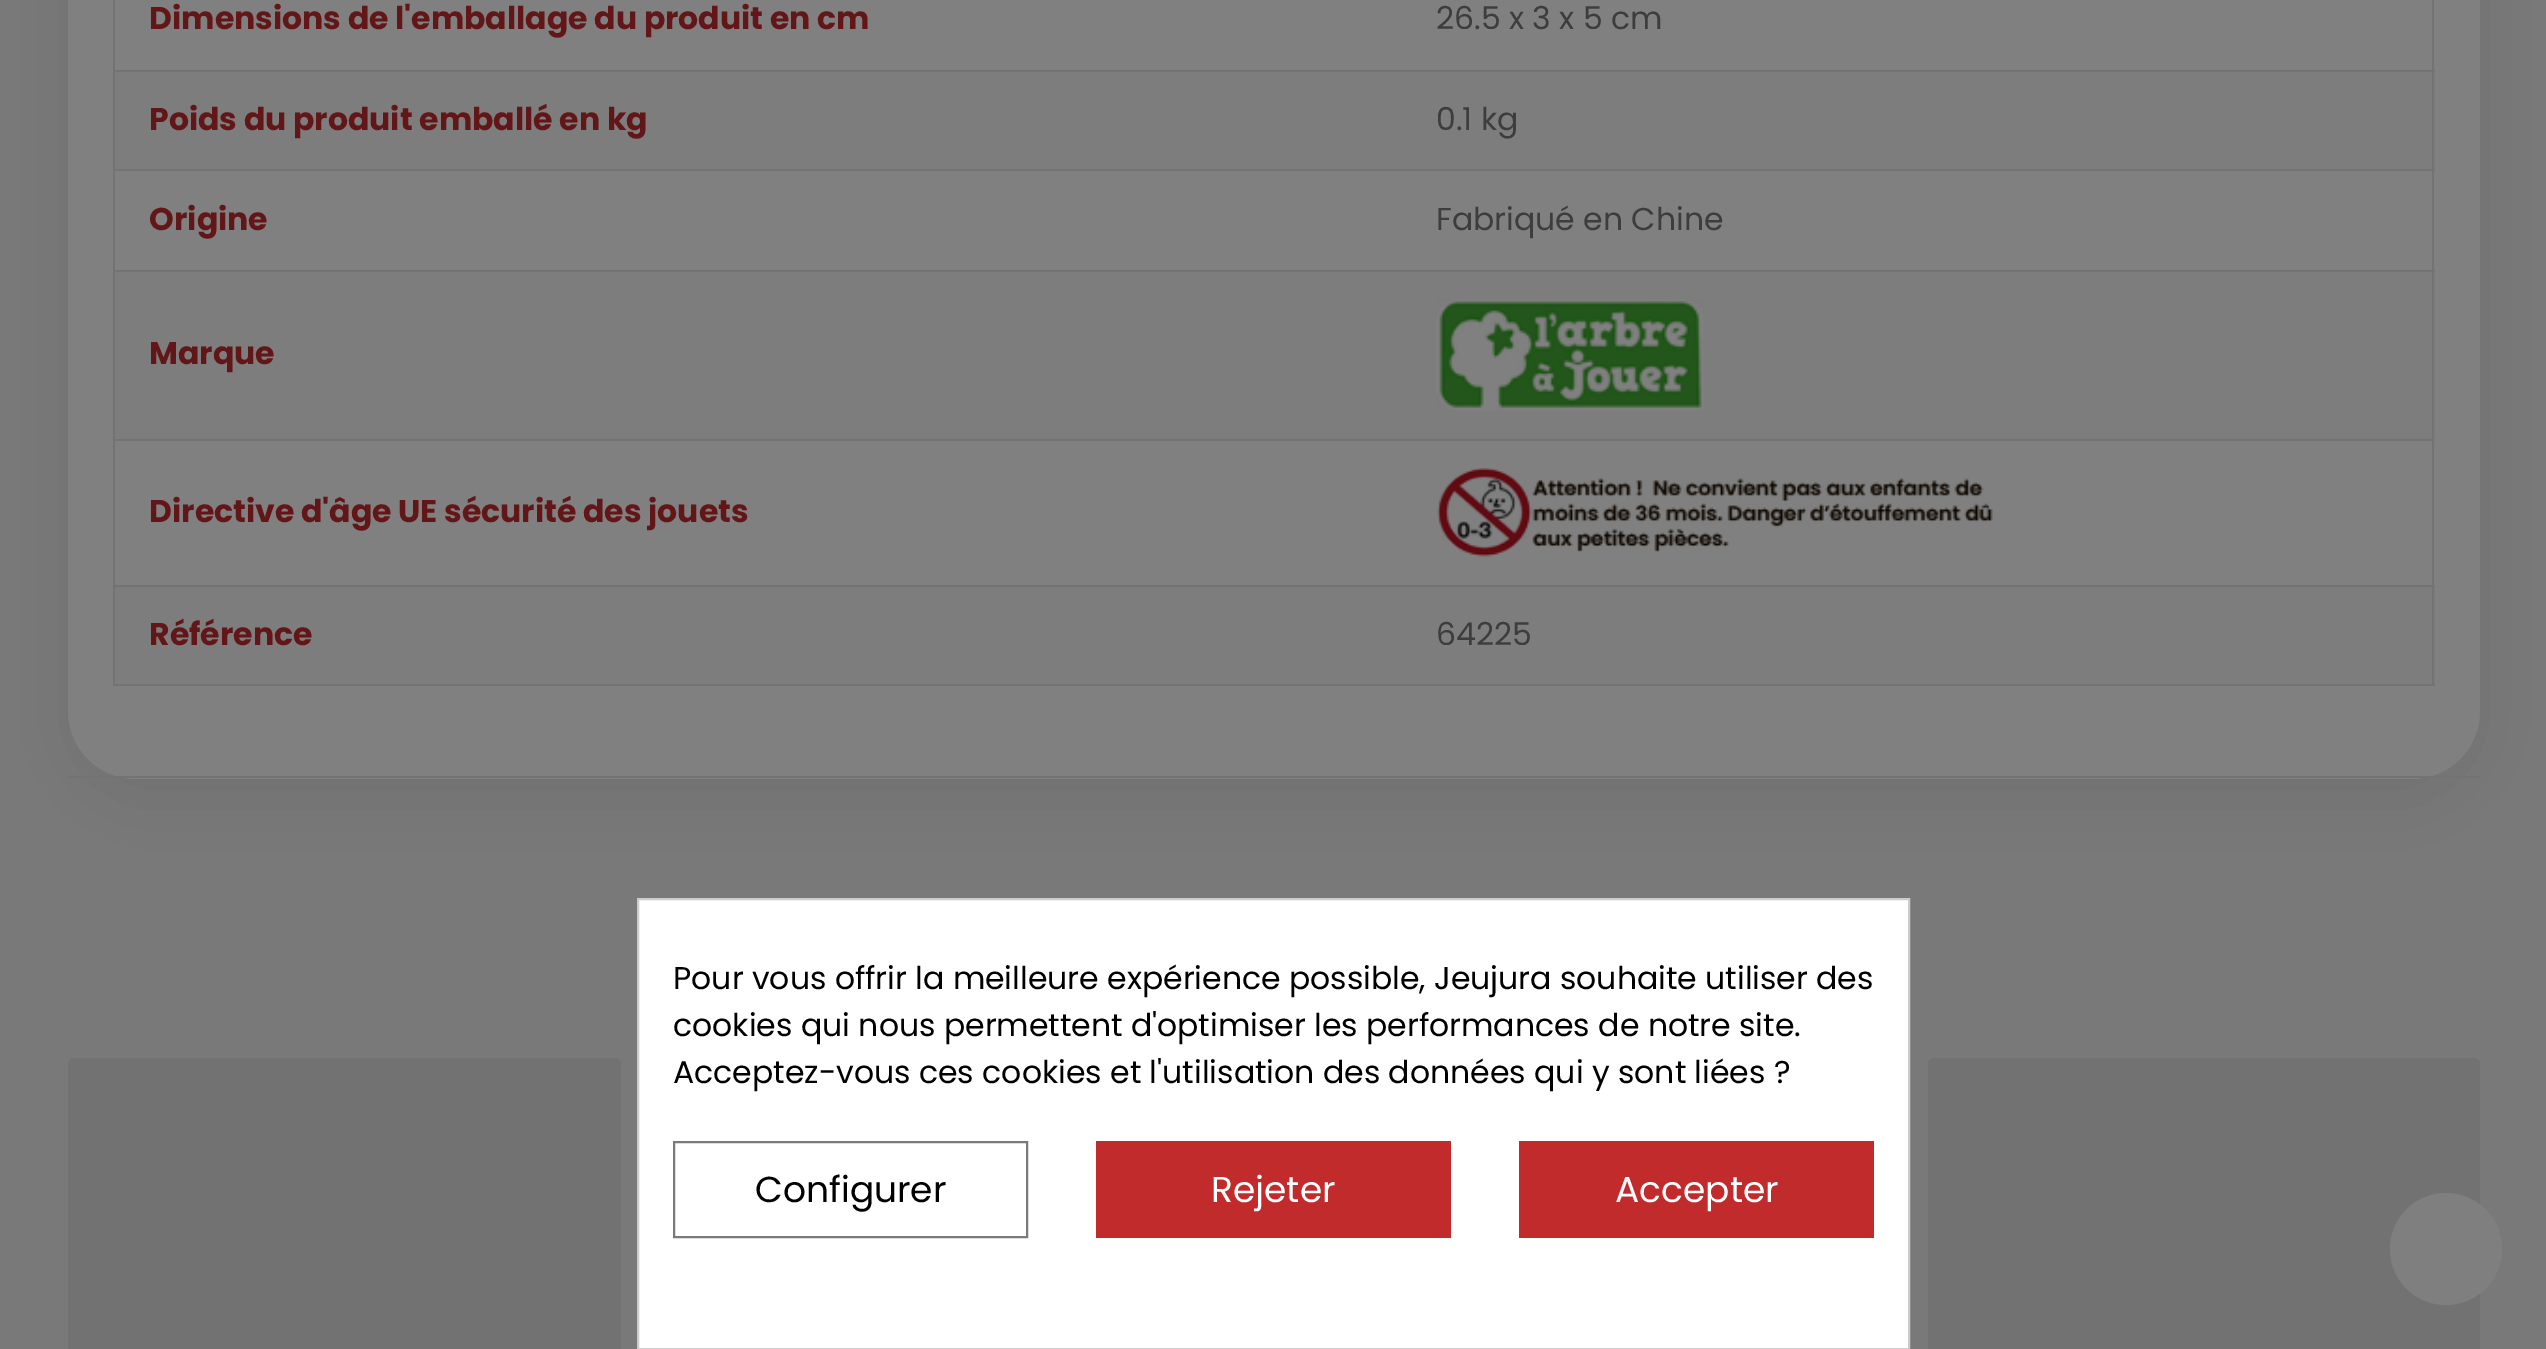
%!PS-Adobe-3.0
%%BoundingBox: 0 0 2546 1349
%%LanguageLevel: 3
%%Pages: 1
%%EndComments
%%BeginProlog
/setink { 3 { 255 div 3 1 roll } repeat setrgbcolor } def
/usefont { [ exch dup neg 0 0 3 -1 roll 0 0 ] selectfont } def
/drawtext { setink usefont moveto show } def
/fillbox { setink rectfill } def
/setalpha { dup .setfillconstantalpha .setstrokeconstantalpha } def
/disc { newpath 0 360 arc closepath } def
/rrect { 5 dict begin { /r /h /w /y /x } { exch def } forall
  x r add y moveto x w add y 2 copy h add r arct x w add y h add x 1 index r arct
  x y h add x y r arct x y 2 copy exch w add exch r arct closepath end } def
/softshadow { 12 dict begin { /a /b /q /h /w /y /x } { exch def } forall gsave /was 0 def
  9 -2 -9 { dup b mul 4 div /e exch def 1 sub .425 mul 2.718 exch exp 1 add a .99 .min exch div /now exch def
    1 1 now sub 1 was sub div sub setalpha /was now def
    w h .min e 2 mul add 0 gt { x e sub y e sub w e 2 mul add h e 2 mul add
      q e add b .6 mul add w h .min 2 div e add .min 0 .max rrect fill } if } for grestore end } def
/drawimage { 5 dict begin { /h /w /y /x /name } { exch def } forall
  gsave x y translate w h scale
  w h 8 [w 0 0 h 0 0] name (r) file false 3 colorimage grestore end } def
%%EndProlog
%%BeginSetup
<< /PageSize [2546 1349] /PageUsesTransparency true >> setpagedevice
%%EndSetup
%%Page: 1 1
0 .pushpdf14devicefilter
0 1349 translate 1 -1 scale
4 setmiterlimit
0 0 2546 1349 121 121 121 fillbox
0 0 0 setink
68 -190 2412 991 68 40.5 0.09 softshadow
128 128 128 setink
68 -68 2412 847 68 rrect fill
68 776 2412 2 115 115 115 fillbox
115 72 2320 97 125 125 125 fillbox
115 272 2320 167 125 125 125 fillbox
115 587 2320 97 125 125 125 fillbox
2432 0 2 686 115 115 115 fillbox
113 684 2322 2 115 115 115 fillbox
113 0 2 686 115 115 115 fillbox
(Dimensions de l'emballage du produit en cm) 149 29 /Poppins-Bold 31.5 99 22 23 drawtext
(26.5 x 3 x 5 cm) 1436 29 /Poppins-Regular 31.5 61 61 61 drawtext
(Poids du produit emballé en kg) 149 130 /Poppins-Bold 31.5 99 22 23 drawtext
113 70 2322 2 115 115 115 fillbox
(0.1 kg) 1436 130 /Poppins-Regular 31.5 61 61 61 drawtext
(Origine) 149 230 /Poppins-Bold 31.5 99 22 23 drawtext
113 169 2322 2 115 115 115 fillbox
(Fabriqué en Chine) 1436 230 /Poppins-Regular 31.5 61 61 61 drawtext
113 270 2322 2 115 115 115 fillbox
(assets/img1.rgb) 1436 299 269 112 drawimage
(Marque) 149 364 /Poppins-Bold 31.5 99 22 23 drawtext
113 439 2322 2 115 115 115 fillbox
(assets/img2.rgb) 1437 468 556 89 drawimage
(Directive d'âge UE sécurité des jouets) 149 522 /Poppins-Bold 31.5 99 22 23 drawtext
(Référence) 149 645 /Poppins-Bold 31.5 99 22 23 drawtext
113 585 2322 2 115 115 115 fillbox
(64225) 1436 645 /Poppins-Regular 31.5 61 61 61 drawtext
gsave 75 1058 moveto 178 1058 lineto 178 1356 lineto 75 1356 lineto 71 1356 68 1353 68 1349 curveto 68 1065 lineto 68 1061 71 1058 75 1058 curveto closepath clip newpath
<< /ShadingType 2 /ColorSpace /DeviceRGB /Coords [-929 1251 178 1251] /Extend [true true] /Function << /FunctionType 3 /Domain [0 1] /Functions [<< /FunctionType 2 /Domain [0 1] /C0 [0.447 0.447 0.447] /C1 [0.447 0.447 0.447] /N 1 >> << /FunctionType 2 /Domain [0 1] /C0 [0.447 0.447 0.447] /C1 [0.463 0.459 0.459] /N 1 >> << /FunctionType 2 /Domain [0 1] /C0 [0.463 0.459 0.459] /C1 [0.447 0.447 0.447] /N 1 >> << /FunctionType 2 /Domain [0 1] /C0 [0.447 0.447 0.447] /C1 [0.447 0.447 0.447] /N 1 >>] /Bounds [0.4 0.5 0.6] /Encode [0 1 0 1 0 1 0 1] >> >> shfill grestore
gsave 178 1058 moveto 614 1058 lineto 618 1058 621 1061 621 1065 curveto 621 1349 lineto 621 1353 618 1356 614 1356 curveto 178 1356 lineto closepath clip newpath
<< /ShadingType 2 /ColorSpace /DeviceRGB /Coords [178 1251 1285 1251] /Extend [true true] /Function << /FunctionType 3 /Domain [0 1] /Functions [<< /FunctionType 2 /Domain [0 1] /C0 [0.447 0.447 0.447] /C1 [0.447 0.447 0.447] /N 1 >> << /FunctionType 2 /Domain [0 1] /C0 [0.447 0.447 0.447] /C1 [0.463 0.459 0.459] /N 1 >> << /FunctionType 2 /Domain [0 1] /C0 [0.463 0.459 0.459] /C1 [0.447 0.447 0.447] /N 1 >> << /FunctionType 2 /Domain [0 1] /C0 [0.447 0.447 0.447] /C1 [0.447 0.447 0.447] /N 1 >>] /Bounds [0.4 0.5 0.6] /Encode [0 1 0 1 0 1 0 1] >> >> shfill grestore
gsave 1935 1058 moveto 2039 1058 lineto 2039 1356 lineto 1935 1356 lineto 1931 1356 1928 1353 1928 1349 curveto 1928 1065 lineto 1928 1061 1931 1058 1935 1058 curveto closepath clip newpath
<< /ShadingType 2 /ColorSpace /DeviceRGB /Coords [936 1251 2039 1251] /Extend [true true] /Function << /FunctionType 3 /Domain [0 1] /Functions [<< /FunctionType 2 /Domain [0 1] /C0 [0.447 0.447 0.447] /C1 [0.447 0.447 0.447] /N 1 >> << /FunctionType 2 /Domain [0 1] /C0 [0.447 0.447 0.447] /C1 [0.463 0.459 0.459] /N 1 >> << /FunctionType 2 /Domain [0 1] /C0 [0.463 0.459 0.459] /C1 [0.447 0.447 0.447] /N 1 >> << /FunctionType 2 /Domain [0 1] /C0 [0.447 0.447 0.447] /C1 [0.447 0.447 0.447] /N 1 >>] /Bounds [0.4 0.5 0.6] /Encode [0 1 0 1 0 1 0 1] >> >> shfill grestore
gsave 2039 1058 moveto 2473 1058 lineto 2477 1058 2480 1061 2480 1065 curveto 2480 1349 lineto 2480 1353 2477 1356 2473 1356 curveto 2039 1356 lineto closepath clip newpath
<< /ShadingType 2 /ColorSpace /DeviceRGB /Coords [2039 1251 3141 1251] /Extend [true true] /Function << /FunctionType 3 /Domain [0 1] /Functions [<< /FunctionType 2 /Domain [0 1] /C0 [0.447 0.447 0.447] /C1 [0.447 0.447 0.447] /N 1 >> << /FunctionType 2 /Domain [0 1] /C0 [0.447 0.447 0.447] /C1 [0.463 0.459 0.459] /N 1 >> << /FunctionType 2 /Domain [0 1] /C0 [0.463 0.459 0.459] /C1 [0.447 0.447 0.447] /N 1 >> << /FunctionType 2 /Domain [0 1] /C0 [0.447 0.447 0.447] /C1 [0.447 0.447 0.447] /N 1 >>] /Bounds [0.4 0.5 0.6] /Encode [0 1 0 1 0 1 0 1] >> >> shfill grestore
255 255 255 setink
638 899 moveto 1909 899 lineto 1909 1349 lineto 638 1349 lineto closepath gsave fill grestore
204 204 204 setink
2 setlinewidth
stroke
(Pour vous offrir la meilleure expérience possible, Jeujura souhaite utiliser des) 673 989 /Poppins-Regular 31.5 0 0 0 drawtext
(cookies qui nous permettent d'optimiser les performances de notre site.) 673 1036 /Poppins-Regular 31.5 0 0 0 drawtext
(Acceptez-vous ces cookies et l'utilisation des données qui y sont liées ?) 673 1083 /Poppins-Regular 31.5 0 0 0 drawtext
122 122 122 setink
674 1142 353 95 rectstroke
(Configurer) 755 1202 /Poppins-Regular 36 0 0 0 drawtext
1096 1141 355 97 193 43 44 fillbox
(Rejeter) 1211 1202 /Poppins-Regular 36 255 255 255 drawtext
1519 1141 355 97 193 43 44 fillbox
(Accepter) 1615 1202 /Poppins-Regular 36 255 255 255 drawtext
0.9 setalpha
128 128 128 setink
2446 1249 56 disc fill
.poppdf14devicefilter showpage
%%EOF
